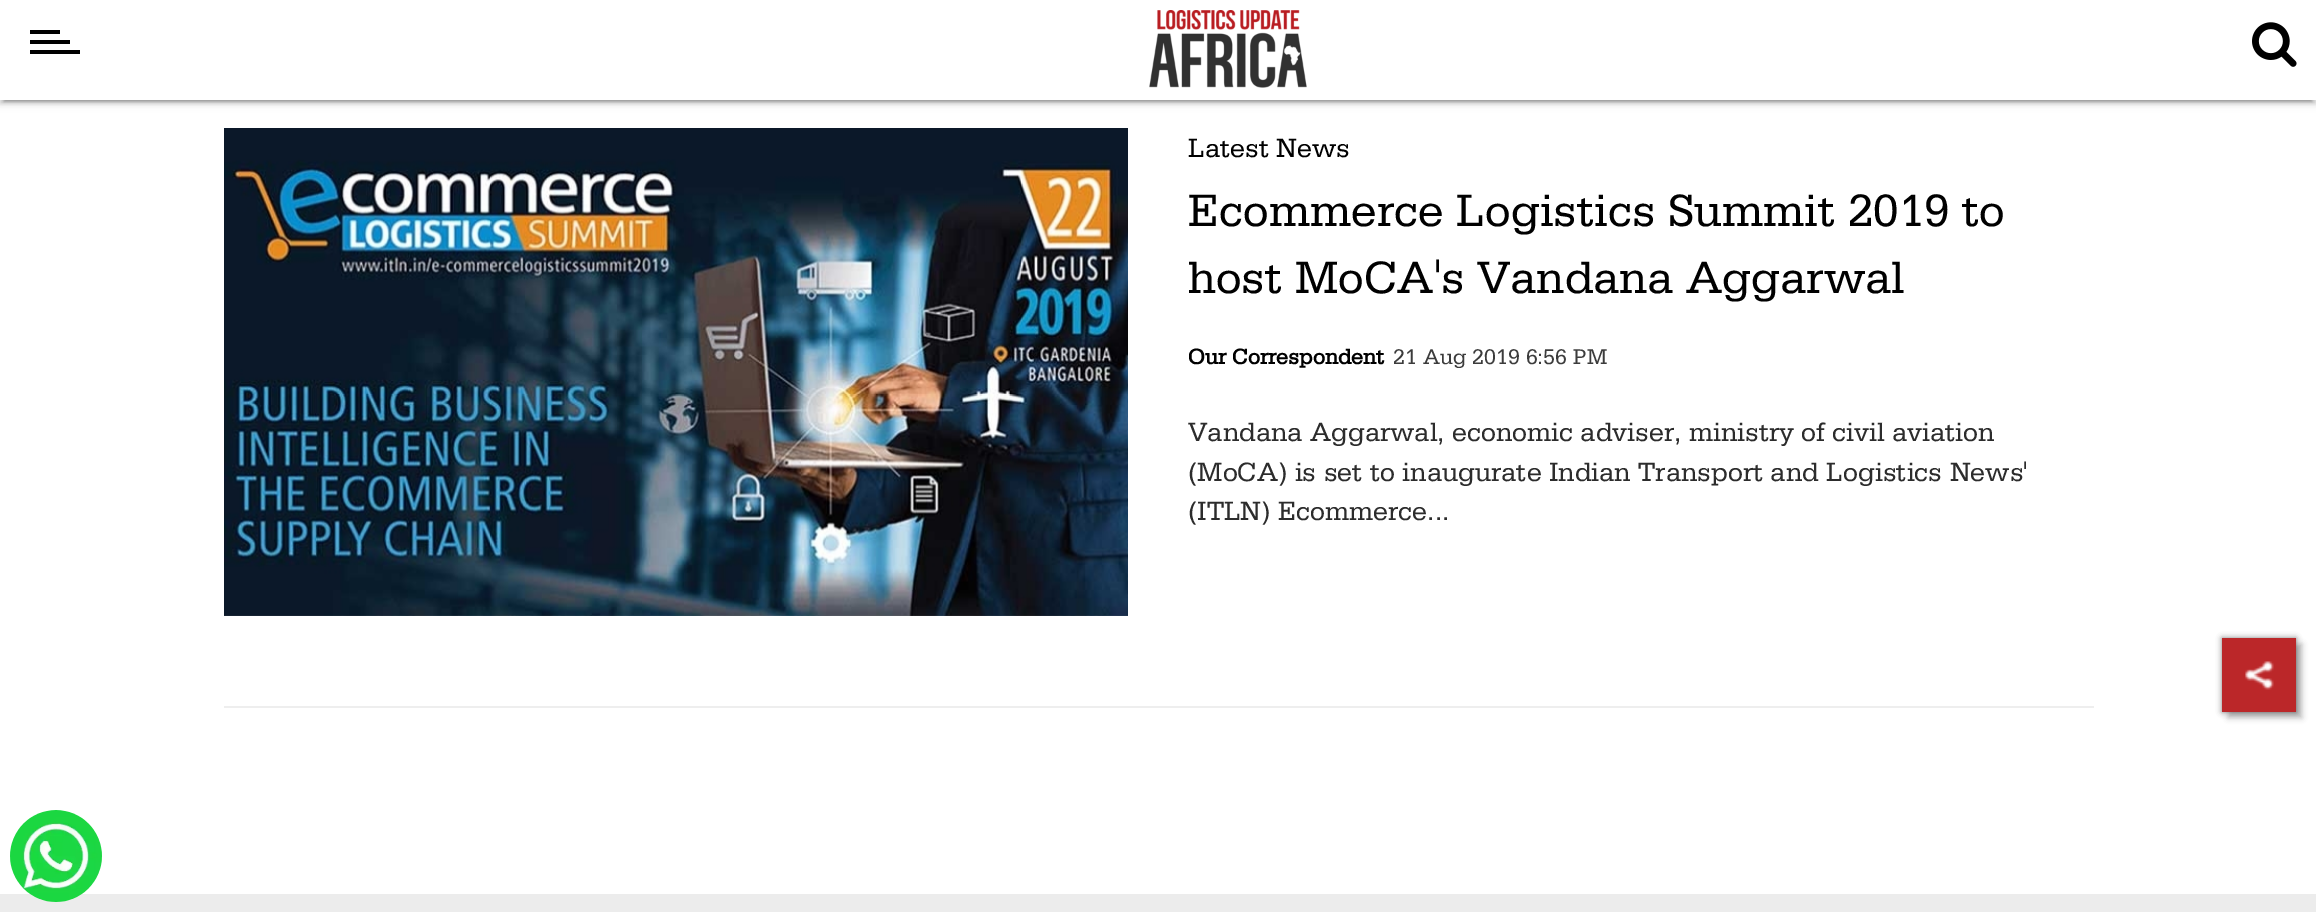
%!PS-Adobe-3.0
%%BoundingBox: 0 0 2316 912
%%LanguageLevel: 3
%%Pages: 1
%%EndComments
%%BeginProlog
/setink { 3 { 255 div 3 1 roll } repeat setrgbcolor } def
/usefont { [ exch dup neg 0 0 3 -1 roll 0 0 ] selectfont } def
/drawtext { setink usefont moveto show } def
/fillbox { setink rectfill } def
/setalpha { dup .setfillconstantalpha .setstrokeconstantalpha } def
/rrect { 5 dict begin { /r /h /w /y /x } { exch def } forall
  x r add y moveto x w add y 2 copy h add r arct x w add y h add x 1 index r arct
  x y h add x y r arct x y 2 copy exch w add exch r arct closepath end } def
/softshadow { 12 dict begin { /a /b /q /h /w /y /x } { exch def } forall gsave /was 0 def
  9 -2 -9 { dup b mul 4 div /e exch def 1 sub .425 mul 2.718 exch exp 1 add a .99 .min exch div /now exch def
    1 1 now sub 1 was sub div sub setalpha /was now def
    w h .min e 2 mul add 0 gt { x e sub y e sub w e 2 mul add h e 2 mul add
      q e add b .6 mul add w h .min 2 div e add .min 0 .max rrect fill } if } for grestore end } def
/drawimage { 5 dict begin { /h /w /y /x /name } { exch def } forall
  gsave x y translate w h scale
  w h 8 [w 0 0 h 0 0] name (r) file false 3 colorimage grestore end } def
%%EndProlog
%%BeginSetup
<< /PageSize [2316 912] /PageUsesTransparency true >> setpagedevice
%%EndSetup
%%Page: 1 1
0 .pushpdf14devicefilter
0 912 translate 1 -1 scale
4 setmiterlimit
0 0 2316 912 255 255 255 fillbox
0 0 0 setink
0 2 2316 100 0 5 0.12 softshadow
4 10 2308 92 0 1 0.2 softshadow
0 4 2316 100 0 2 0.14 softshadow
0 0 2316 100 255 255 255 fillbox
30 50 50 4 0 0 0 fillbox
30 30 30 4 0 0 0 fillbox
30 40 40 4 0 0 0 fillbox
(assets/img1.rgb) 1149 10 158 78 drawimage
(assets/img2.rgb) 2252 22 45 45 drawimage
(assets/img3.rgb) 224 128 904 488 drawimage
(Latest News) 1188 157 /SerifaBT-Regular 28 0 0 0 drawtext
(Ecommerce Logistics Summit 2019 to) 1188 226 /SerifaBT-Regular 48 0 0 0 drawtext
(host MoCA's Vandana Aggarwal) 1188 293 /SerifaBT-Regular 48 0 0 0 drawtext
(Our Correspondent) 1188 364 /SerifaBT-Bold 22.5 0 0 0 drawtext
(21 Aug 2019 6:56 PM) 1393 364 /SerifaBT-Regular 22.5 60 60 60 drawtext
(Vandana Aggarwal, economic adviser, ministry of civil aviation) 1188 441 /SerifaBT-Regular 28 44 44 44 drawtext
(\(MoCA\) is set to inaugurate Indian Transport and Logistics News') 1188 481 /SerifaBT-Regular 28 44 44 44 drawtext
(\(ITLN\) Ecommerce...) 1188 520 /SerifaBT-Regular 28 44 44 44 drawtext
224 706 1870 2 238 238 238 fillbox
0 894 2316 18 236 236 236 fillbox
0 0 0 setink
2228 644 74 74 0 3 0.25 softshadow
2222 638 74 74 0 3 0.5 softshadow
2222 638 74 74 187 39 41 fillbox
(assets/img4.rgb) 2245 661 29 29 drawimage
(assets/img5.rgb) 10 810 92 92 drawimage
.poppdf14devicefilter showpage
%%EOF
